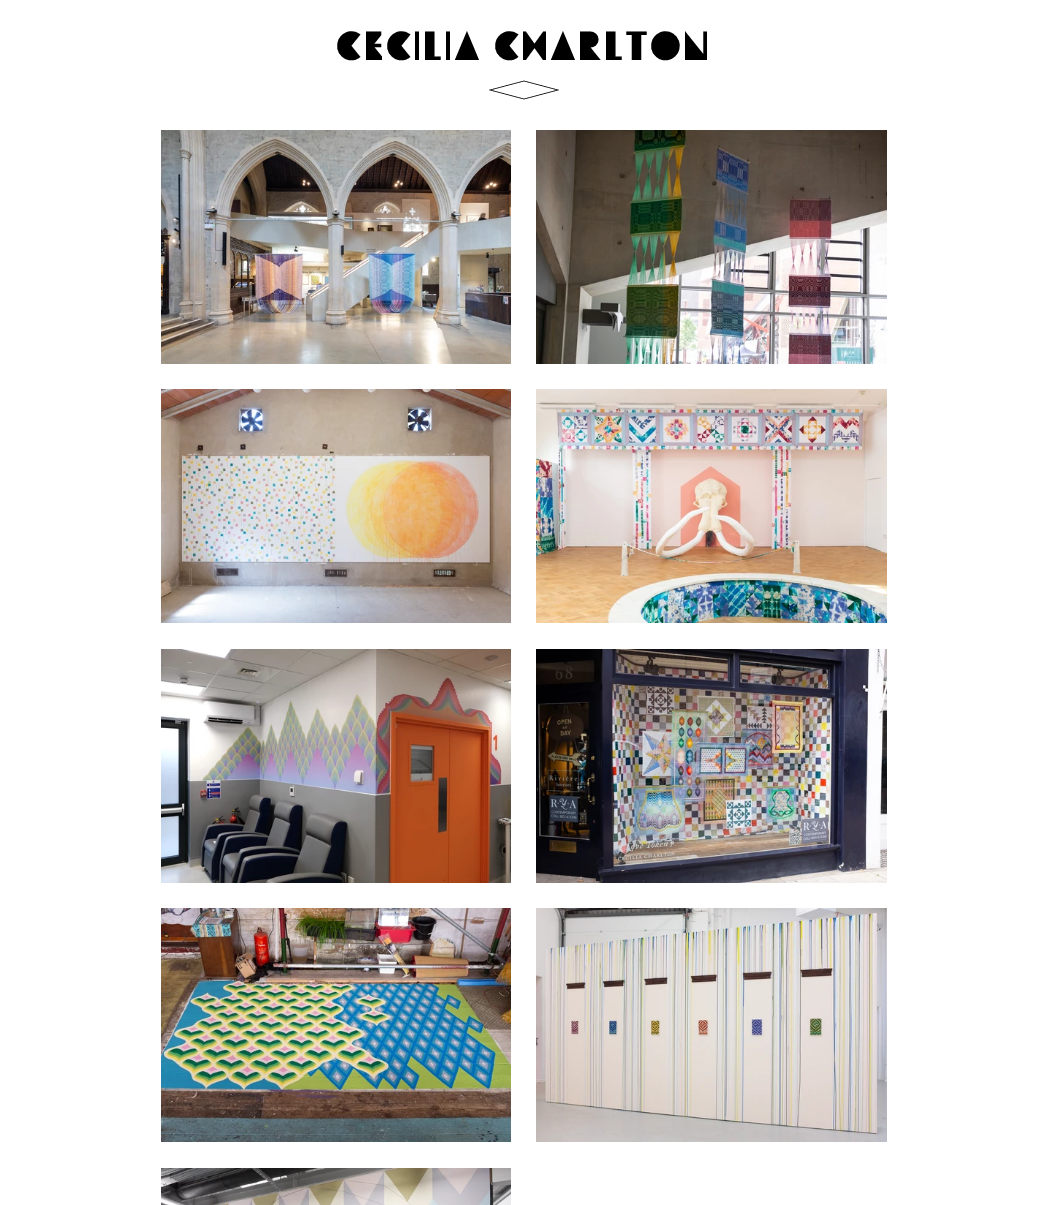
%!PS-Adobe-3.0
%%BoundingBox: 0 0 1047 1205
%%LanguageLevel: 3
%%Pages: 1
%%EndComments
%%BeginProlog
/setink { 3 { 255 div 3 1 roll } repeat setrgbcolor } def
/usefont { [ exch dup neg 0 0 3 -1 roll 0 0 ] selectfont } def
/fillbox { setink rectfill } def
/drawimage { 5 dict begin { /h /w /y /x /name } { exch def } forall
  gsave x y translate w h scale
  w h 8 [w 0 0 h 0 0] name (r) file false 3 colorimage grestore end } def
%%EndProlog
%%BeginSetup
<< /PageSize [1047 1205] >> setpagedevice
%%EndSetup
%%Page: 1 1
0 1205 translate 1 -1 scale
4 setmiterlimit
0 0 1047 1205 255 255 255 fillbox
/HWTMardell-Regular 40 usefont
0 0 0 setink
336 60 moveto 2 0 (CECILIA CHARLTON) ashow
0.5 setlinewidth
524 81 moveto 558 90 lineto 524 99 lineto 490 90 lineto closepath stroke
(assets/img1.rgb) 161 130 350 234 drawimage
(assets/img2.rgb) 536 130 351 234 drawimage
(assets/img3.rgb) 161 389 350 234 drawimage
(assets/img4.rgb) 536 389 351 234 drawimage
(assets/img5.rgb) 161 649 350 234 drawimage
(assets/img6.rgb) 536 649 351 234 drawimage
(assets/img7.rgb) 161 908 350 234 drawimage
(assets/img8.rgb) 536 908 351 234 drawimage
(assets/img9.rgb) 161 1168 350 37 drawimage
showpage
%%EOF
